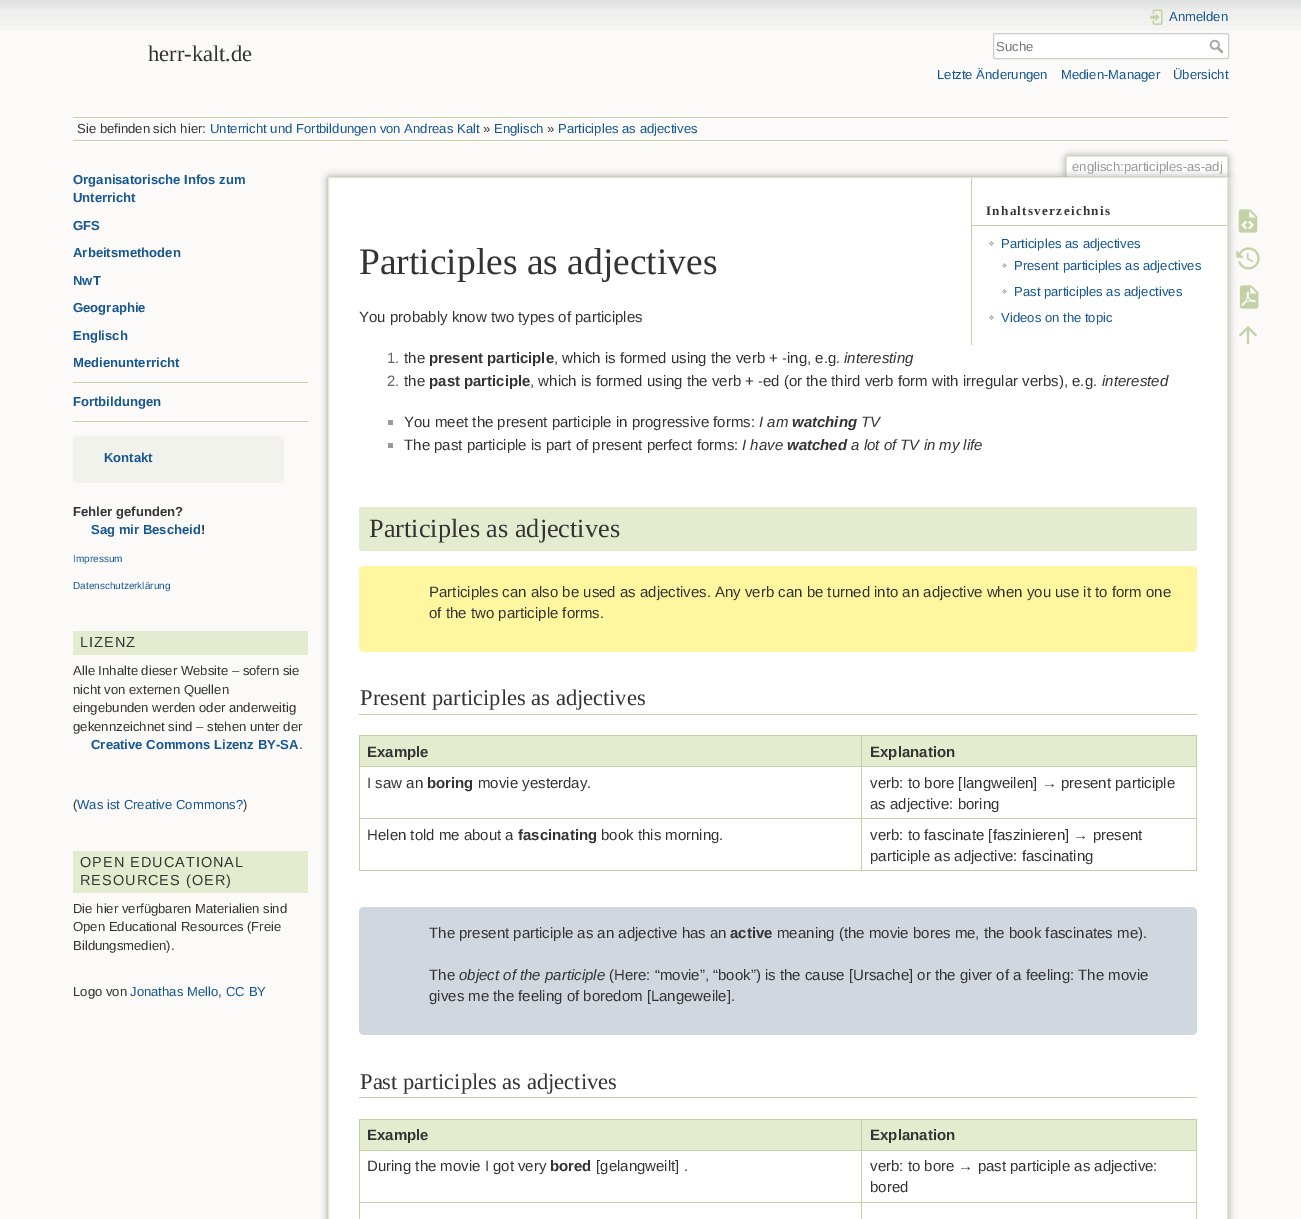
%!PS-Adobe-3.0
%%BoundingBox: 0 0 1301 1219
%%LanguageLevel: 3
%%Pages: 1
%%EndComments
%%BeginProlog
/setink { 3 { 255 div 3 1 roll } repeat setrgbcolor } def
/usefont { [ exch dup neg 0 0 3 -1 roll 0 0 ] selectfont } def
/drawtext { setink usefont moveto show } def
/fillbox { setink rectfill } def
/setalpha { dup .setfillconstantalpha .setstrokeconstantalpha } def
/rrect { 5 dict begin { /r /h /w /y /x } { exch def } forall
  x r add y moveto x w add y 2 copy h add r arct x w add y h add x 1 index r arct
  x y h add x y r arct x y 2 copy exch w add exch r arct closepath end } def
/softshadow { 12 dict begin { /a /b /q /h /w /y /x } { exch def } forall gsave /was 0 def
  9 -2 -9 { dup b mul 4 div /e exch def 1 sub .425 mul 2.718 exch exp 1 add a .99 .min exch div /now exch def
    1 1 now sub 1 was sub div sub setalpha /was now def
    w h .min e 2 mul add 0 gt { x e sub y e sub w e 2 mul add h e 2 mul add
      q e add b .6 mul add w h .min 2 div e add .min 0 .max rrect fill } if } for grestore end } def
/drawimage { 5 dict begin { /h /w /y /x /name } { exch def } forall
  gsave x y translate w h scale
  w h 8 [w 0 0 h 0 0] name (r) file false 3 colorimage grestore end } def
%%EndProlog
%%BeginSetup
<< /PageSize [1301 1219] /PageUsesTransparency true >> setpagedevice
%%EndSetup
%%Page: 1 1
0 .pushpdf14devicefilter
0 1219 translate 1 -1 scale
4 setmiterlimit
0 0 1301 1219 251 250 249 fillbox
(assets/img1.rgb) 0 0 1301 31 drawimage
(herr-kalt.de) 148 61 /LiberationSerif-Regular 22.5 51 51 51 drawtext
(assets/img2.rgb) 1150 9 13 16 drawimage
(Anmelden) 1169 21 /LiberationSans-Regular 13.1 21 86 147 drawtext
255 255 255 setink
993.5 33.5 235 25 1.5 rrect gsave fill grestore
204 204 204 setink
stroke
(Suche) 996 51 /LiberationSans-Regular 13.1 117 117 117 drawtext
(assets/img3.rgb) 1209 39 14 14 drawimage
(Letzte Änderungen) 937 79 /LiberationSans-Regular 13.1 21 86 147 drawtext
(Medien-Manager) 1061 79 /LiberationSans-Regular 13.1 21 86 147 drawtext
(Übersicht) 1173 79 /LiberationSans-Regular 13.1 21 86 147 drawtext
73 117 1155 1 196 209 167 fillbox
73 141 1155 1 255 255 255 fillbox
73 118 1155 1 255 255 255 fillbox
73 140 1155 1 196 209 167 fillbox
(Sie befinden sich hier:) 77 133 /LiberationSans-Regular 13.1 51 51 51 drawtext
(Unterricht und Fortbildungen von Andreas Kalt) 210 133 /LiberationSans-Regular 13.1 21 86 147 drawtext
(») 483 133 /LiberationSans-Regular 13.1 51 51 51 drawtext
(Englisch) 494 133 /LiberationSans-Regular 13.1 21 86 147 drawtext
(») 547 133 /LiberationSans-Regular 13.1 51 51 51 drawtext
(Participles as adjectives) 558 133 /LiberationSans-Regular 13.1 21 86 147 drawtext
(Organisatorische Infos zum) 73 184 /LiberationSans-Bold 13.1 21 86 147 drawtext
(Unterricht) 73 202 /LiberationSans-Bold 13.1 21 86 147 drawtext
(GFS) 73 230 /LiberationSans-Bold 13.1 21 86 147 drawtext
(Arbeitsmethoden) 73 257 /LiberationSans-Bold 13.1 21 86 147 drawtext
(NwT) 73 285 /LiberationSans-Bold 13.1 21 86 147 drawtext
(Geographie) 73 312 /LiberationSans-Bold 13.1 21 86 147 drawtext
(Englisch) 73 340 /LiberationSans-Bold 13.1 21 86 147 drawtext
(Medienunterricht) 73 367 /LiberationSans-Bold 13.1 21 86 147 drawtext
73 382 235 1 196 209 167 fillbox
73 383 235 1 255 255 255 fillbox
(Fortbildungen) 73 406 /LiberationSans-Bold 13.1 21 86 147 drawtext
73 421 235 1 196 209 167 fillbox
73 422 235 1 255 255 255 fillbox
241 242 236 setink
73 436 211 47 5 rrect fill
(Kontakt) 104 462 /LiberationSans-Bold 13.1 21 86 147 drawtext
(Fehler gefunden?) 73 516 /LiberationSans-Bold 13.1 51 51 51 drawtext
(Sag mir Bescheid) 91 534 /LiberationSans-Bold 13.1 21 86 147 drawtext
(!) 201 534 /LiberationSans-Bold 13.1 51 51 51 drawtext
(Impressum) 73 562 /LiberationSans-Regular 10 21 86 147 drawtext
(Datenschutzerklärung) 73 589 /LiberationSans-Regular 10 21 86 147 drawtext
73 631 235 24 228 236 207 fillbox
/LiberationSans-Regular 14.5 usefont
51 51 51 setink
80 647 moveto 1 0 (LIZENZ) ashow
(Alle Inhalte dieser Website – sofern sie) 73 675 /LiberationSans-Regular 13.1 51 51 51 drawtext
(nicht von externen Quellen) 73 694 /LiberationSans-Regular 13.1 51 51 51 drawtext
(eingebunden werden oder anderweitig) 73 712 /LiberationSans-Regular 13.1 51 51 51 drawtext
(gekennzeichnet sind – stehen unter der) 73 731 /LiberationSans-Regular 13.1 51 51 51 drawtext
(Creative Commons Lizenz BY-SA) 91 749 /LiberationSans-Bold 13.1 21 86 147 drawtext
(.) 299 749 /LiberationSans-Regular 13.1 51 51 51 drawtext
(\() 73 809 /LiberationSans-Regular 13.1 51 51 51 drawtext
(Was ist Creative Commons?) 77 809 /LiberationSans-Regular 13.1 21 86 147 drawtext
(\)) 243 809 /LiberationSans-Regular 13.1 51 51 51 drawtext
73 851 235 42 228 236 207 fillbox
/LiberationSans-Regular 14.5 usefont
51 51 51 setink
80 867 moveto 1 0 (OPEN EDUCATIONAL) ashow
80 885 moveto 1 0 (RESOURCES \(OER\)) ashow
(Die hier verfügbaren Materialien sind) 73 913 /LiberationSans-Regular 13.1 51 51 51 drawtext
(Open Educational Resources \(Freie) 73 931 /LiberationSans-Regular 13.1 51 51 51 drawtext
(Bildungsmedien\).) 73 950 /LiberationSans-Regular 13.1 51 51 51 drawtext
(Logo von) 73 996 /LiberationSans-Regular 13.1 51 51 51 drawtext
(Jonathas Mello) 130 996 /LiberationSans-Regular 13.1 21 86 147 drawtext
(,) 218 996 /LiberationSans-Regular 13.1 51 51 51 drawtext
(CC BY) 226 996 /LiberationSans-Regular 13.1 21 86 147 drawtext
gsave
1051 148 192 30 rectclip
153 153 153 setink
1066 156 162 22 2 3.5 1 softshadow
grestore
255 255 255 setink
1068 157 moveto 1226 157 lineto 1226.5 157 1227 157.5 1227 158 curveto 1227 178 lineto 1067 178 lineto 1067 158 lineto 1067 157.5 1067.5 157 1068 157 curveto closepath fill
1067 156 160 1 228 236 207 fillbox
1227 157 1 21 228 236 207 fillbox
1066 157 1 21 228 236 207 fillbox
(englisch:participles-as-adj) 1072 171 /LiberationSans-Regular 13.1 153 153 153 drawtext
328 177 900 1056 2 4 1 softshadow
255 255 255 setink
328.5 177.5 899 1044 1.5 rrect gsave fill grestore
228 236 207 setink
stroke
(Participles as adjectives) 359 274 /LiberationSerif-Regular 37.5 51 51 51 drawtext
1226 178 1 1 255 255 255 fillbox
971 178 1 167 196 209 167 fillbox
972 225 255 1 196 209 167 fillbox
/LiberationSerif-Bold 13.1 usefont
51 51 51 setink
986 215 moveto 1.3 0 (Inhaltsverzeichnis) ashow
(assets/img4.rgb) 989 241 5 5 drawimage
(Participles as adjectives) 1001 248 /LiberationSans-Regular 13.1 21 86 147 drawtext
(assets/img4.rgb) 1002 263 5 5 drawimage
(Present participles as adjectives) 1014 270 /LiberationSans-Regular 13.1 21 86 147 drawtext
(assets/img4.rgb) 1002 289 5 5 drawimage
(Past participles as adjectives) 1014 296 /LiberationSans-Regular 13.1 21 86 147 drawtext
(assets/img4.rgb) 989 315 5 5 drawimage
(Videos on the topic) 1001 322 /LiberationSans-Regular 13.1 21 86 147 drawtext
(You probably know two types of participles) 359 322 /LiberationSans-Regular 15 51 51 51 drawtext
(1.) 387 363 /LiberationSans-Regular 15 102 102 102 drawtext
(the) 404 363 /LiberationSans-Regular 15 51 51 51 drawtext
(present participle) 429 363 /LiberationSans-Bold 15 51 51 51 drawtext
(, which is formed using the verb + -ing, e.g.) 554 363 /LiberationSans-Regular 15 51 51 51 drawtext
(interesting) 844 363 /LiberationSans-Italic 15 51 51 51 drawtext
(2.) 387 386 /LiberationSans-Regular 15 102 102 102 drawtext
(the) 404 386 /LiberationSans-Regular 15 51 51 51 drawtext
(past participle) 429 386 /LiberationSans-Bold 15 51 51 51 drawtext
(, which is formed using the verb + -ed \(or the third verb form with irregular verbs\), e.g.) 530 386 /LiberationSans-Regular 15 51 51 51 drawtext
(interested) 1102 386 /LiberationSans-Italic 15 51 51 51 drawtext
388 420 5 5 153 153 153 fillbox
(You meet the present participle in progressive forms:) 404 427 /LiberationSans-Regular 15 51 51 51 drawtext
(I am) 759 427 /LiberationSans-Italic 15 51 51 51 drawtext
(watching) 792 427 /LiberationSans-BoldItalic 15 51 51 51 drawtext
(TV) 861 427 /LiberationSans-Italic 15 51 51 51 drawtext
388 443 5 5 153 153 153 fillbox
(The past participle is part of present perfect forms:) 404 450 /LiberationSans-Regular 15 51 51 51 drawtext
(I have) 742 450 /LiberationSans-Italic 15 51 51 51 drawtext
(watched) 787 450 /LiberationSans-BoldItalic 15 51 51 51 drawtext
(a lot of TV in my life) 851 450 /LiberationSans-Italic 15 51 51 51 drawtext
228 236 207 setink
359 507 838 44 3 rrect fill
(Participles as adjectives) 369 537 /LiberationSerif-Regular 26.25 51 51 51 drawtext
255 247 159 setink
359 566 838 86 5 rrect fill
(Participles can also be used as adjectives. Any verb can be turned into an adjective when you use it to form one) 429 597 /LiberationSans-Regular 15 51 51 51 drawtext
(of the two participle forms.) 429 618 /LiberationSans-Regular 15 51 51 51 drawtext
359 714 838 1 196 209 167 fillbox
(Present participles as adjectives) 360 705 /LiberationSerif-Regular 22.5 51 51 51 drawtext
359 735 838 1 196 209 167 fillbox
1196 735 1 136 196 209 167 fillbox
359 870 838 1 196 209 167 fillbox
359 735 1 136 196 209 167 fillbox
360 736 501 30 228 236 207 fillbox
(Example) 367 757 /LiberationSans-Bold 15 51 51 51 drawtext
862 736 334 30 228 236 207 fillbox
861 766 336 1 196 209 167 fillbox
861 818 336 1 196 209 167 fillbox
861 818 1 53 196 209 167 fillbox
359 818 503 1 196 209 167 fillbox
861 766 1 53 196 209 167 fillbox
359 766 503 1 196 209 167 fillbox
861 735 1 32 196 209 167 fillbox
(Explanation) 870 757 /LiberationSans-Bold 15 51 51 51 drawtext
(I saw an) 367 788 /LiberationSans-Regular 15 51 51 51 drawtext
(boring) 427 788 /LiberationSans-Bold 15 51 51 51 drawtext
(movie yesterday.) 478 788 /LiberationSans-Regular 15 51 51 51 drawtext
(verb: to bore [langweilen] → present participle) 870 788 /LiberationSans-Regular 15 51 51 51 drawtext
(as adjective: boring) 870 809 /LiberationSans-Regular 15 51 51 51 drawtext
(Helen told me about a) 367 840 /LiberationSans-Regular 15 51 51 51 drawtext
(fascinating) 518 840 /LiberationSans-Bold 15 51 51 51 drawtext
(book this morning.) 601 840 /LiberationSans-Regular 15 51 51 51 drawtext
(verb: to fascinate [faszinieren] → present) 870 840 /LiberationSans-Regular 15 51 51 51 drawtext
(participle as adjective: fascinating) 870 861 /LiberationSans-Regular 15 51 51 51 drawtext
209 215 223 setink
359 907 838 128 5 rrect fill
(The present participle as an adjective has an) 429 938 /LiberationSans-Regular 15 51 51 51 drawtext
(active) 730 938 /LiberationSans-Bold 15 51 51 51 drawtext
(meaning \(the movie bores me, the book fascinates me\).) 777 938 /LiberationSans-Regular 15 51 51 51 drawtext
(The) 429 980 /LiberationSans-Regular 15 51 51 51 drawtext
(object of the participle) 459 980 /LiberationSans-Italic 15 51 51 51 drawtext
(\(Here: “movie”, “book”\) is the cause [Ursache] or the giver of a feeling: The movie) 609 980 /LiberationSans-Regular 15 51 51 51 drawtext
(gives me the feeling of boredom [Langeweile].) 429 1001 /LiberationSans-Regular 15 51 51 51 drawtext
359 1097 838 1 196 209 167 fillbox
(Past participles as adjectives) 360 1089 /LiberationSerif-Regular 22.5 51 51 51 drawtext
359 1119 838 1 196 209 167 fillbox
1196 1119 1 100 196 209 167 fillbox
359 1119 1 100 196 209 167 fillbox
360 1120 501 30 228 236 207 fillbox
(Example) 367 1140 /LiberationSans-Bold 15 51 51 51 drawtext
862 1120 334 30 228 236 207 fillbox
861 1150 336 1 196 209 167 fillbox
861 1202 336 1 196 209 167 fillbox
861 1202 1 17 196 209 167 fillbox
359 1202 503 1 196 209 167 fillbox
861 1150 1 53 196 209 167 fillbox
359 1150 503 1 196 209 167 fillbox
861 1119 1 32 196 209 167 fillbox
(Explanation) 870 1140 /LiberationSans-Bold 15 51 51 51 drawtext
(During the movie I got very) 367 1171 /LiberationSans-Regular 15 51 51 51 drawtext
(bored) 550 1171 /LiberationSans-Bold 15 51 51 51 drawtext
([gelangweilt] .) 596 1171 /LiberationSans-Regular 15 51 51 51 drawtext
(verb: to bore → past participle as adjective:) 870 1171 /LiberationSans-Regular 15 51 51 51 drawtext
(bored) 870 1192 /LiberationSans-Regular 15 51 51 51 drawtext
(assets/img5.rgb) 1238 209 20 24 drawimage
(assets/img6.rgb) 1236 247 24 23 drawimage
(assets/img7.rgb) 1239 285 20 24 drawimage
(assets/img8.rgb) 1239 326 18 19 drawimage
.poppdf14devicefilter showpage
%%EOF
